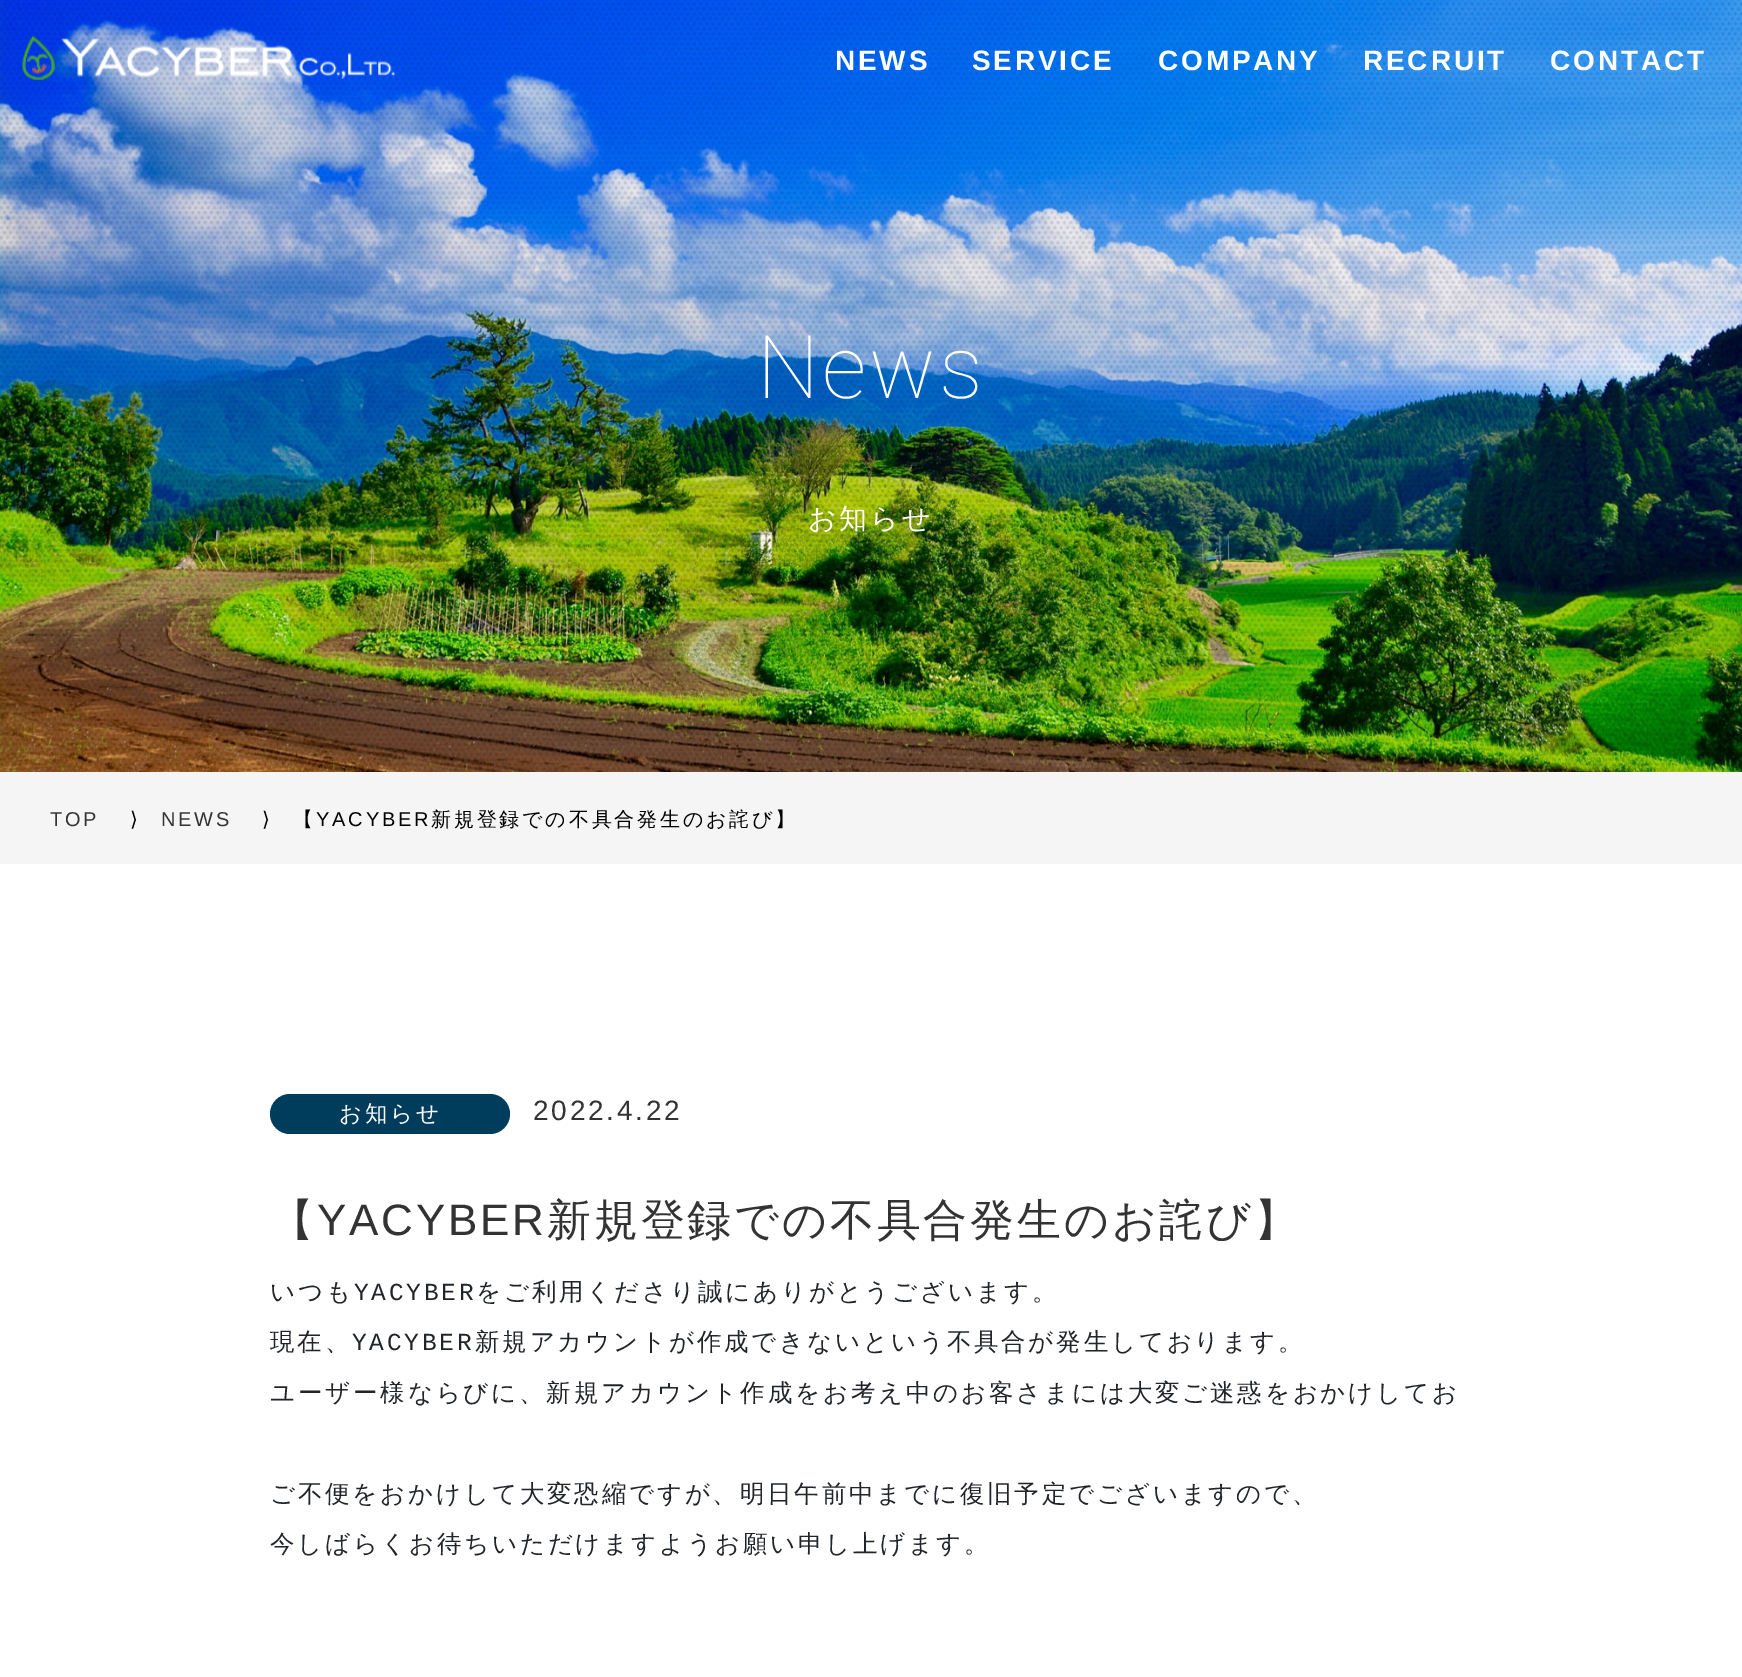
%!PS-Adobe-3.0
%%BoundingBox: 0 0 1742 1677
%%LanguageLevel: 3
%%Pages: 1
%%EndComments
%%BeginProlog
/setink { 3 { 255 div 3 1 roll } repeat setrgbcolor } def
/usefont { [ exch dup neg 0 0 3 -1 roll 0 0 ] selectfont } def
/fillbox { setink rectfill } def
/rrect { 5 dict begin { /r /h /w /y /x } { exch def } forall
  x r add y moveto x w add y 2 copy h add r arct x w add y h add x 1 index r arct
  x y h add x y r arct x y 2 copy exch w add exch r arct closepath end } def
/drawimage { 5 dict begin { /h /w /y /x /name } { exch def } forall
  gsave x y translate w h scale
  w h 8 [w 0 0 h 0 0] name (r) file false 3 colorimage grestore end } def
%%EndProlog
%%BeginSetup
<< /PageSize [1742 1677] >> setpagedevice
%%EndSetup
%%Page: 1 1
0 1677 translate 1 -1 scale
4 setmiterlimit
0 0 1742 1677 255 255 255 fillbox
(assets/img2.rgb) 0 0 1742 772 drawimage
(assets/img1.rgb) 22 35 373 45 drawimage
/LiberationSans-Bold 28 usefont
835 70 moveto 2.8 0 (NEWS) ashow
972 70 moveto 2.8 0 (SERVICE) ashow
1158 70 moveto 2.8 0 (COMPANY) ashow
1363 70 moveto 2.8 0 (RECRUIT) ashow
1550 70 moveto 2.8 0 (CONTACT) ashow
/Roboto-Thin 88 usefont
757 398 moveto 2.8 0 (News) ashow
/WenQuanYiZenHei-Medium 28 usefont
808 528 moveto 2.8 0 (お知らせ) ashow
0 772 1742 92 245 245 245 fillbox
/LiberationSans-Regular 20 usefont
51 51 51 setink
50 826 moveto 2.8 0 (TOP) ashow
/DejaVuSans-Regular 20 usefont
0 0 0 setink
130 826 moveto 2.8 0 (⟩) ashow
/LiberationSans-Regular 20 usefont
51 51 51 setink
161 826 moveto 2.8 0 (NEWS) ashow
/DejaVuSans-Regular 20 usefont
0 0 0 setink
262 826 moveto 2.8 0 (⟩) ashow
/WenQuanYiZenHei-Medium 20 usefont
293 826 moveto 2.8 0 (【) ashow
/LiberationSans-Regular 20 usefont
316 826 moveto 2.8 0 (YACYBER) ashow
/WenQuanYiZenHei-Medium 20 usefont
431 826 moveto 2.8 0 (新規登録での不具合発生のお詫び】) ashow
0 61 92 setink
270 1094 240 40 20 rrect fill
/WenQuanYiZenHei-Medium 22.5 usefont
255 255 255 setink
339 1121 moveto 2.8 0 (お知らせ) ashow
/LiberationSans-Regular 28 usefont
51 51 51 setink
533 1120 moveto 2.8 0 (2022.4.22) ashow
/WenQuanYiZenHei-Medium 44 usefont
270 1235 moveto 2.8 0 (【) ashow
/LiberationSans-Regular 44 usefont
317 1235 moveto 2.8 0 (YACYBER) ashow
/WenQuanYiZenHei-Medium 44 usefont
547 1235 moveto 2.8 0 (新規登録での不具合発生のお詫び】) ashow
/WenQuanYiZenHei-Medium 24.5 usefont
33 37 41 setink
270 1300 moveto 2.8 0 (いつも) ashow
/LiberationMono-Regular 24.5 usefont
354 1300 moveto 2.8 0 (YACYBER) ashow
/WenQuanYiZenHei-Medium 24.5 usefont
476 1300 moveto 2.8 0 (をご利用くださり誠にありがとうございます。) ashow
270 1350 moveto 2.8 0 (現在、) ashow
/LiberationMono-Regular 24.5 usefont
352 1350 moveto 2.8 0 (YACYBER) ashow
/WenQuanYiZenHei-Medium 24.5 usefont
475 1350 moveto 2.8 0 (新規アカウントが作成できないという不具合が発生しております。) ashow
270 1401 moveto 2.8 0 (ユーザー様ならびに、新規アカウント作成をお考え中のお客さまには大変ご迷惑をおかけしてお) ashow
270 1502 moveto 2.8 0 (ご不便をおかけして大変恐縮ですが、明日午前中までに復旧予定でございますので、) ashow
270 1552 moveto 2.8 0 (今しばらくお待ちいただけますようお願い申し上げます。) ashow
showpage
%%EOF
